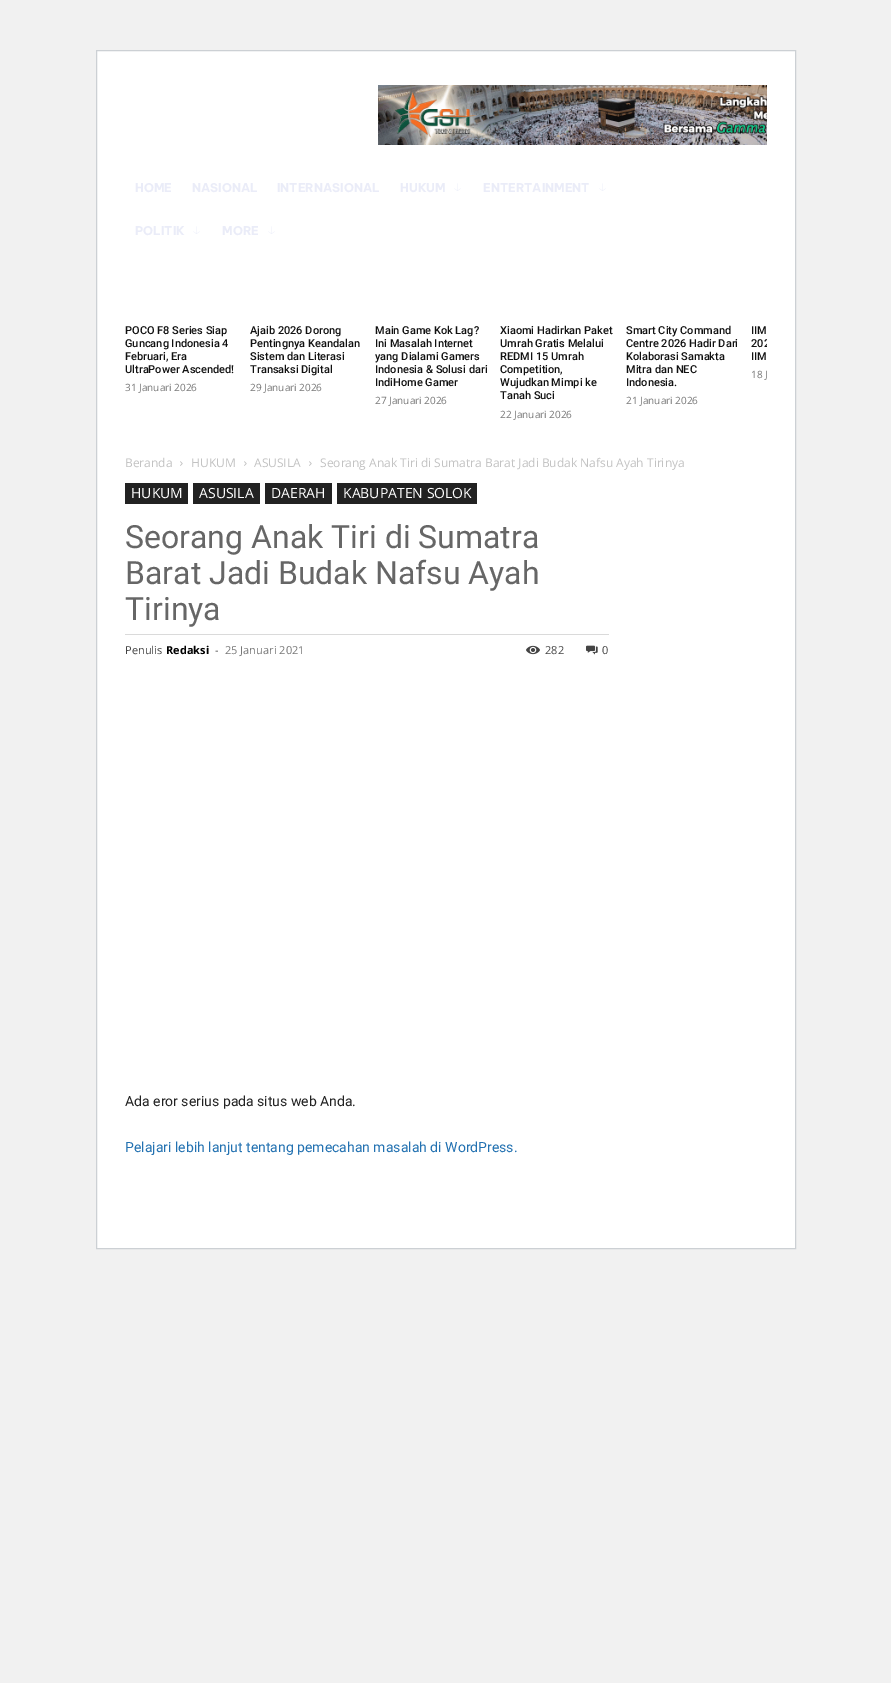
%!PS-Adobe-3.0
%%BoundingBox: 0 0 891 1683
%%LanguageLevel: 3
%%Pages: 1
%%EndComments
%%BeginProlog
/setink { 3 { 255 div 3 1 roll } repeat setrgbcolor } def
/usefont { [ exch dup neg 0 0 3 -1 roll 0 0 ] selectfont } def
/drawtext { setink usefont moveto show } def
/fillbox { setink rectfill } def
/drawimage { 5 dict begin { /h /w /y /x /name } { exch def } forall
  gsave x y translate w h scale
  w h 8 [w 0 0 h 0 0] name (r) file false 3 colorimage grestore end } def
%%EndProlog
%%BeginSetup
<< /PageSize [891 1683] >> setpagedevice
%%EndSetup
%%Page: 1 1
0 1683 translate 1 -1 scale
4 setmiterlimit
0 0 891 1683 241 241 241 fillbox
255 255 255 setink
96.5 50.5 moveto 795.5 50.5 lineto 795.5 1248.5 lineto 96.5 1248.5 lineto closepath gsave fill grestore
204 208 212 setink
stroke
(assets/img1.rgb) 378 85 389 60 drawimage
(HOME) 135 192 /BeVietnamPro-Bold 12 234 236 248 drawtext
(NASIONAL) 192 192 /BeVietnamPro-Bold 12 234 236 248 drawtext
(INTERNASIONAL) 277 192 /BeVietnamPro-Bold 12 234 236 248 drawtext
(HUKUM) 400 192 /BeVietnamPro-Bold 12 234 236 248 drawtext
(assets/img2.rgb) 454 183 7 8 drawimage
(ENTERTAINMENT) 483 192 /BeVietnamPro-Bold 12 234 236 248 drawtext
(assets/img2.rgb) 599 183 7 8 drawimage
(POLITIK) 135 235 /BeVietnamPro-Bold 12 234 236 248 drawtext
(assets/img2.rgb) 193 226 7 8 drawimage
(MORE) 222 235 /BeVietnamPro-Bold 12 234 236 248 drawtext
(assets/img2.rgb) 268 226 7 8 drawimage
(POCO F8 Series Siap) 125 334 /Roboto-Medium 11 17 17 17 drawtext
(Guncang Indonesia 4) 125 347 /Roboto-Medium 11 17 17 17 drawtext
(Februari, Era) 125 360 /Roboto-Medium 11 17 17 17 drawtext
(UltraPower Ascended!) 125 373 /Roboto-Medium 11 17 17 17 drawtext
(31 Januari 2026) 125 391 /OpenSans-Regular 10 118 118 118 drawtext
(Ajaib 2026 Dorong) 250 334 /Roboto-Medium 11 17 17 17 drawtext
(Pentingnya Keandalan) 250 347 /Roboto-Medium 11 17 17 17 drawtext
(Sistem dan Literasi) 250 360 /Roboto-Medium 11 17 17 17 drawtext
(Transaksi Digital) 250 373 /Roboto-Medium 11 17 17 17 drawtext
(29 Januari 2026) 250 391 /OpenSans-Regular 10 118 118 118 drawtext
(Main Game Kok Lag?) 375 334 /Roboto-Medium 11 17 17 17 drawtext
(Ini Masalah Internet) 375 347 /Roboto-Medium 11 17 17 17 drawtext
(yang Dialami Gamers) 375 360 /Roboto-Medium 11 17 17 17 drawtext
(Indonesia & Solusi dari) 375 373 /Roboto-Medium 11 17 17 17 drawtext
(IndiHome Gamer) 375 386 /Roboto-Medium 11 17 17 17 drawtext
(27 Januari 2026) 375 404 /OpenSans-Regular 10 118 118 118 drawtext
(Xiaomi Hadirkan Paket) 500 334 /Roboto-Medium 11 17 17 17 drawtext
(Umrah Gratis Melalui) 500 347 /Roboto-Medium 11 17 17 17 drawtext
(REDMI 15 Umrah) 500 360 /Roboto-Medium 11 17 17 17 drawtext
(Competition,) 500 373 /Roboto-Medium 11 17 17 17 drawtext
(Wujudkan Mimpi ke) 500 386 /Roboto-Medium 11 17 17 17 drawtext
(Tanah Suci) 500 399 /Roboto-Medium 11 17 17 17 drawtext
(22 Januari 2026) 500 418 /OpenSans-Regular 10 118 118 118 drawtext
(Smart City Command) 626 334 /Roboto-Medium 11 17 17 17 drawtext
(Centre 2026 Hadir Dari) 626 347 /Roboto-Medium 11 17 17 17 drawtext
(Kolaborasi Samakta) 626 360 /Roboto-Medium 11 17 17 17 drawtext
(Mitra dan NEC) 626 373 /Roboto-Medium 11 17 17 17 drawtext
(Indonesia.) 626 386 /Roboto-Medium 11 17 17 17 drawtext
(21 Januari 2026) 626 404 /OpenSans-Regular 10 118 118 118 drawtext
(IIM) 751 334 /Roboto-Medium 11 17 17 17 drawtext
gsave
125 65 642 1169 rectclip
(202) 751 347 /Roboto-Medium 11 17 17 17 drawtext
grestore
(IIM) 751 360 /Roboto-Medium 11 17 17 17 drawtext
(18 J) 751 378 /OpenSans-Regular 10 118 118 118 drawtext
(Beranda) 125 467 /OpenSans-Regular 12 195 195 195 drawtext
(assets/img3.rgb) 180 461 3 5 drawimage
(HUKUM) 191 467 /OpenSans-Regular 12 195 195 195 drawtext
(assets/img3.rgb) 244 461 3 5 drawimage
(ASUSILA) 254 467 /OpenSans-Regular 12 195 195 195 drawtext
(assets/img3.rgb) 309 461 3 5 drawimage
(Seorang Anak Tiri di Sumatra Barat Jadi Budak Nafsu Ayah Tirinya) 320 467 /OpenSans-Regular 12 195 195 195 drawtext
125 483 63 21 34 34 34 fillbox
(HUKUM) 131 498 /OpenSans-Regular 14 255 255 255 drawtext
193 483 67 21 34 34 34 fillbox
(ASUSILA) 199 498 /OpenSans-Regular 14 255 255 255 drawtext
265 483 67 21 34 34 34 fillbox
(DAERAH) 271 498 /OpenSans-Regular 14 255 255 255 drawtext
337 483 140 21 34 34 34 fillbox
(KABUPATEN SOLOK) 343 498 /OpenSans-Regular 14 255 255 255 drawtext
125 634 484 1 218 218 218 fillbox
(Seorang Anak Tiri di Sumatra) 125 548 /Roboto-Regular 32 102 102 102 drawtext
(Barat Jadi Budak Nafsu Ayah) 125 584 /Roboto-Regular 32 102 102 102 drawtext
(Tirinya) 125 620 /Roboto-Regular 32 102 102 102 drawtext
(Penulis) 125 654 /OpenSans-Regular 11 68 68 68 drawtext
(Redaksi) 166 654 /OpenSans-Bold 11 0 0 0 drawtext
(-) 215 654 /OpenSans-Regular 11 68 68 68 drawtext
(25 Januari 2021) 225 654 /OpenSans-Regular 11 118 118 118 drawtext
(assets/img4.rgb) 526 645 14 10 drawimage
(282) 545 654 /OpenSans-Regular 11 68 68 68 drawtext
(assets/img5.rgb) 586 645 12 10 drawimage
(0) 602 654 /OpenSans-Regular 11 68 68 68 drawtext
(Ada eror serius pada situs web Anda.) 125 1106 /Roboto-Regular 14 34 34 34 drawtext
(Pelajari lebih lanjut tentang pemecahan masalah di WordPress.) 125 1152 /Roboto-Regular 14 34 113 177 drawtext
showpage
%%EOF
